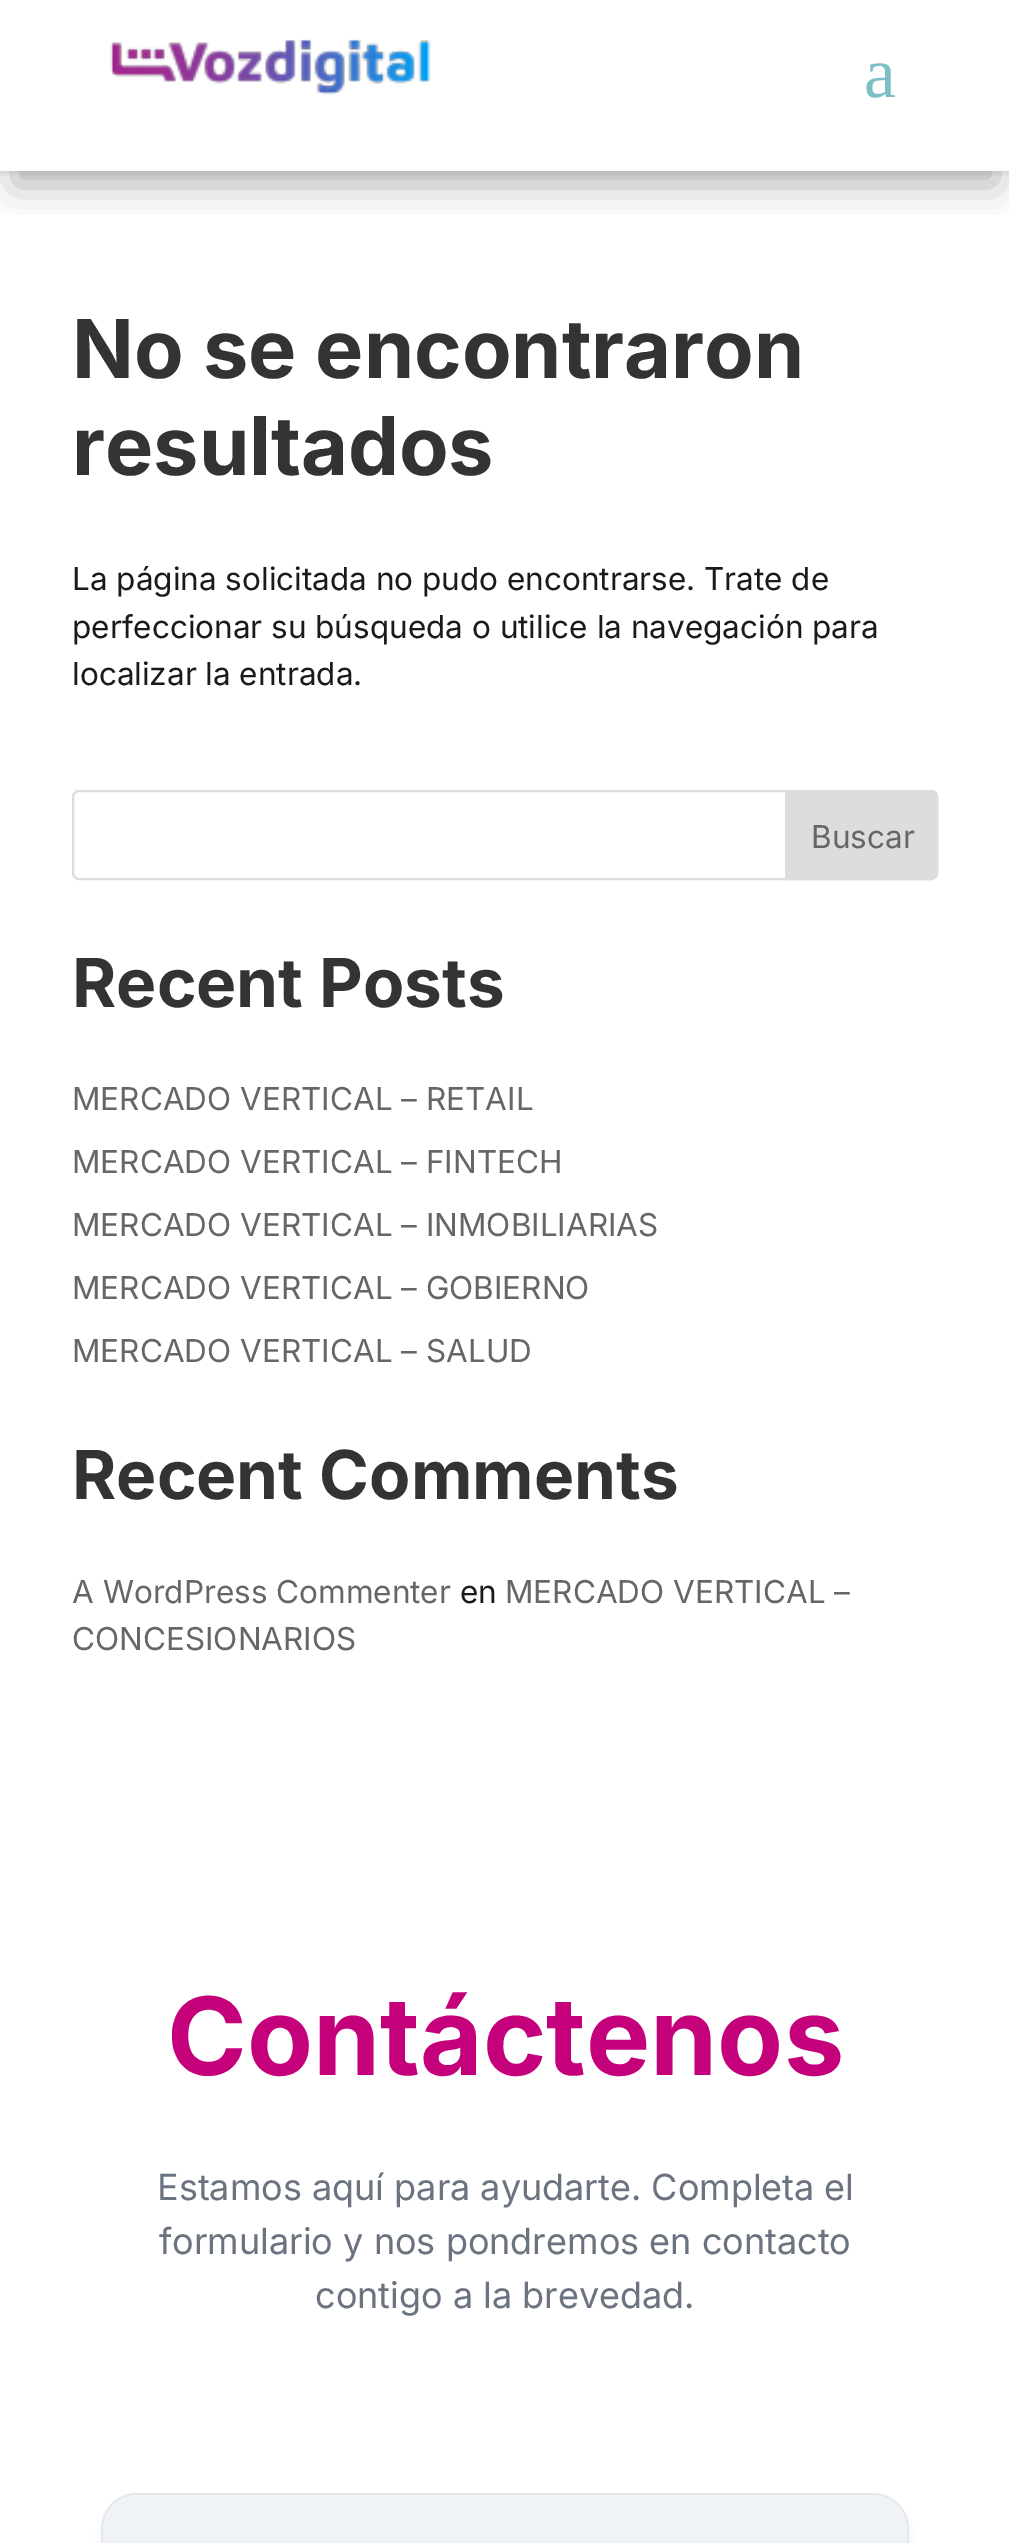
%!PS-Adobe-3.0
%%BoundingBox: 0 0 1009 2543
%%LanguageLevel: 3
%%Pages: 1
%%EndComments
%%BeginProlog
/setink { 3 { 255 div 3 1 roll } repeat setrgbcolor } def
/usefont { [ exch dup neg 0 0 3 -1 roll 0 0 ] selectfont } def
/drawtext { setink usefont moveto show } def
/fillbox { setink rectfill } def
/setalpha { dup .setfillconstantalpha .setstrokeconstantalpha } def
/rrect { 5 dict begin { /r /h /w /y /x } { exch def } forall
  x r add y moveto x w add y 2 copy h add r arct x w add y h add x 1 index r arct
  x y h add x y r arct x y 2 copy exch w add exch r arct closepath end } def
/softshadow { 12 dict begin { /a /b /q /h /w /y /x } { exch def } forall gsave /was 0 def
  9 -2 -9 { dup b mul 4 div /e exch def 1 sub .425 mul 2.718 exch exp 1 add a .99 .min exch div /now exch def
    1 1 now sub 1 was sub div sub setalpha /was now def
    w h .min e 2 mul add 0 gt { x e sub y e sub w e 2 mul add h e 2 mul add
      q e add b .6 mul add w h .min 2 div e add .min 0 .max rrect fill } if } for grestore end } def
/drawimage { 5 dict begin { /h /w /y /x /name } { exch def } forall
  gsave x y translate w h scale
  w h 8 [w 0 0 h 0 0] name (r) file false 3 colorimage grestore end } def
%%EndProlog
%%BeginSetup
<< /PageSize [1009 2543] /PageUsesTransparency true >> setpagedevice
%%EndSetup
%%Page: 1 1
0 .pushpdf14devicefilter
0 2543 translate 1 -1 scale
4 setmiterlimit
0 0 1009 2543 255 255 255 fillbox
gsave
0 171 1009 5 rectclip
0 0 0 setink
0 2 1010 171 0 3.5 0.1 softshadow
grestore
gsave
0 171 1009 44 rectclip
0 0 0 setink
14 41 983 144 0 20 0.3 softshadow
grestore
(assets/img1.rgb) 110 38 321 57 drawimage
(a) 864 97 /LiberationSerif-Regular 72 126 190 197 drawtext
(No se encontraron) 72 378 /Inter-Bold 81 51 51 51 drawtext
(resultados) 72 475 /Inter-Bold 81 51 51 51 drawtext
(La página solicitada no pudo encontrarse. Trate de) 72 590 /Inter-Regular 31.5 26 26 26 drawtext
(perfeccionar su búsqueda o utilice la navegación para) 72 638 /Inter-Regular 31.5 26 26 26 drawtext
(localizar la entrada.) 72 685 /Inter-Regular 31.5 26 26 26 drawtext
221 221 221 setink
2 setlinewidth
73 791 864 88 6 rrect stroke
786 791 moveto 931 791 lineto 934.5 791 937 793.5 937 797 curveto 937 873 lineto 937 876.5 934.5 879 931 879 curveto 786 879 lineto closepath gsave fill grestore
stroke
(Buscar) 811 848 /Inter-Regular 31.5 102 102 102 drawtext
(Recent Posts) 72 1007 /Inter-Bold 67.5 51 51 51 drawtext
(MERCADO VERTICAL – RETAIL) 72 1110 /Inter-Regular 31.5 102 102 102 drawtext
(MERCADO VERTICAL – FINTECH) 72 1173 /Inter-Regular 31.5 102 102 102 drawtext
(MERCADO VERTICAL – INMOBILIARIAS) 72 1236 /Inter-Regular 31.5 102 102 102 drawtext
(MERCADO VERTICAL – GOBIERNO) 72 1299 /Inter-Regular 31.5 102 102 102 drawtext
(MERCADO VERTICAL – SALUD) 72 1362 /Inter-Regular 31.5 102 102 102 drawtext
(Recent Comments) 72 1499 /Inter-Bold 67.5 51 51 51 drawtext
(A WordPress Commenter) 72 1603 /Inter-Regular 31.5 102 102 102 drawtext
(en) 460 1603 /Inter-Regular 31.5 26 26 26 drawtext
(MERCADO VERTICAL –) 505 1603 /Inter-Regular 31.5 102 102 102 drawtext
(CONCESIONARIOS) 72 1650 /Inter-Regular 31.5 102 102 102 drawtext
(Contáctenos) 167 2075 /Inter-Bold 108 196 0 123 drawtext
(Estamos aquí para ayudarte. Completa el) 157 2200 /Inter-Regular 36 107 114 128 drawtext
(formulario y nos pondremos en contacto) 159 2254 /Inter-Regular 36 107 114 128 drawtext
(contigo a la brevedad.) 315 2308 /Inter-Regular 36 107 114 128 drawtext
0 0 0 setink
110 2507 790 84 27 7 0.3 softshadow
229 231 235 setink
102 2494 806 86 35 rrect stroke
239 242 247 setink
104 2495 803 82 34 rrect fill
.poppdf14devicefilter showpage
%%EOF
